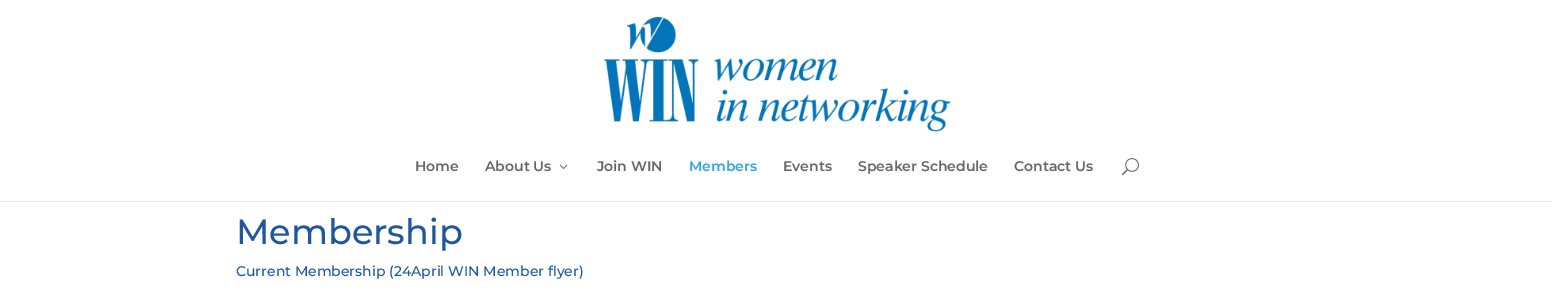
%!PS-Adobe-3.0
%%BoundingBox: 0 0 1552 307
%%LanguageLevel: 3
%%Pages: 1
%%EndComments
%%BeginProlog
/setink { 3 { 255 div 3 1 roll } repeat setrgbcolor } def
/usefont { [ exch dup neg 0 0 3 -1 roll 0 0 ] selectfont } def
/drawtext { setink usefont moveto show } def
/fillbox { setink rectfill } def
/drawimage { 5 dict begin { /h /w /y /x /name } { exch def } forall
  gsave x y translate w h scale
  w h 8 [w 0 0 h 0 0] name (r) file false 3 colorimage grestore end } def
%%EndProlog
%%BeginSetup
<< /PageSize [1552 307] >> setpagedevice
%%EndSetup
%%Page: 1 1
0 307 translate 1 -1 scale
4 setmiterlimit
0 0 1552 307 255 255 255 fillbox
0 201 1552 1 230 230 230 fillbox
(assets/img1.rgb) 604 16 347 116 drawimage
(Home) 415 171 /Montserrat-SemiBold 14 102 102 102 drawtext
(About Us) 485 171 /Montserrat-SemiBold 14 102 102 102 drawtext
(assets/img2.rgb) 559 164 9 5 drawimage
(Join WIN) 597 171 /Montserrat-SemiBold 14 102 102 102 drawtext
(Members) 689 171 /Montserrat-SemiBold 14 46 163 242 drawtext
(Events) 783 171 /Montserrat-SemiBold 14 102 102 102 drawtext
(Speaker Schedule) 858 171 /Montserrat-SemiBold 14 102 102 102 drawtext
(Contact Us) 1014 171 /Montserrat-SemiBold 14 102 102 102 drawtext
(assets/img3.rgb) 1122 158 17 18 drawimage
(Membership) 236 244 /Montserrat-Medium 35 30 86 159 drawtext
(Current Membership \(24April WIN Member flyer\)) 236 276 /Montserrat-Medium 14 30 86 159 drawtext
showpage
%%EOF
